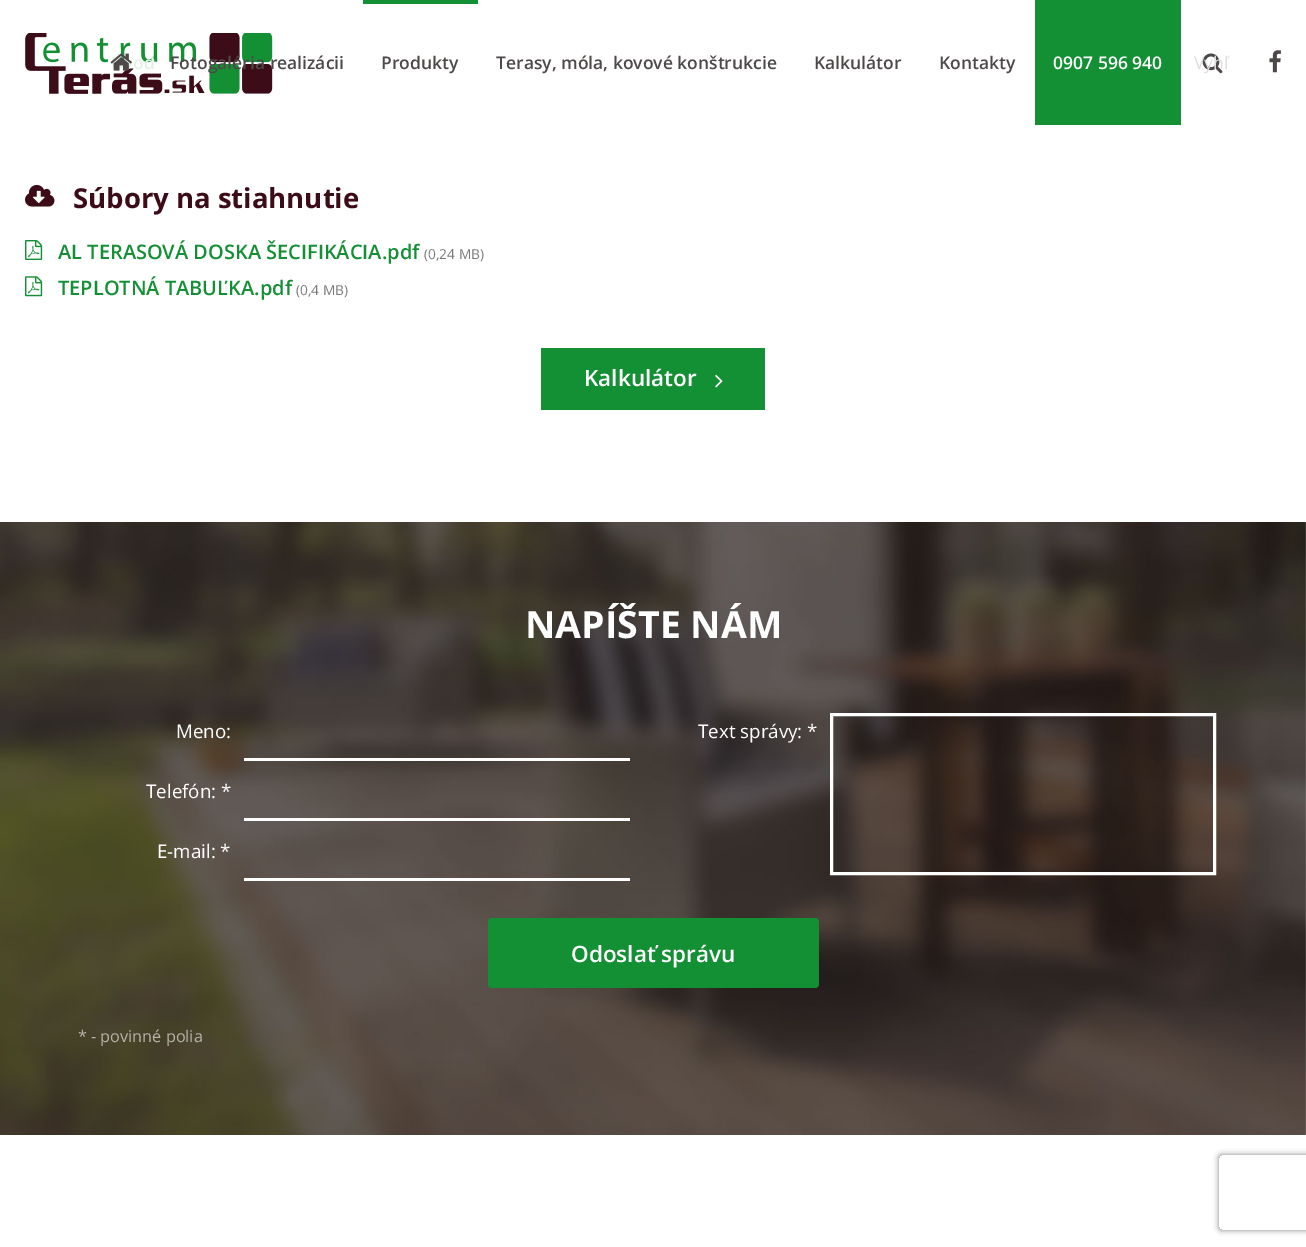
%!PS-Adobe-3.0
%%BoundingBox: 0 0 1306 1247
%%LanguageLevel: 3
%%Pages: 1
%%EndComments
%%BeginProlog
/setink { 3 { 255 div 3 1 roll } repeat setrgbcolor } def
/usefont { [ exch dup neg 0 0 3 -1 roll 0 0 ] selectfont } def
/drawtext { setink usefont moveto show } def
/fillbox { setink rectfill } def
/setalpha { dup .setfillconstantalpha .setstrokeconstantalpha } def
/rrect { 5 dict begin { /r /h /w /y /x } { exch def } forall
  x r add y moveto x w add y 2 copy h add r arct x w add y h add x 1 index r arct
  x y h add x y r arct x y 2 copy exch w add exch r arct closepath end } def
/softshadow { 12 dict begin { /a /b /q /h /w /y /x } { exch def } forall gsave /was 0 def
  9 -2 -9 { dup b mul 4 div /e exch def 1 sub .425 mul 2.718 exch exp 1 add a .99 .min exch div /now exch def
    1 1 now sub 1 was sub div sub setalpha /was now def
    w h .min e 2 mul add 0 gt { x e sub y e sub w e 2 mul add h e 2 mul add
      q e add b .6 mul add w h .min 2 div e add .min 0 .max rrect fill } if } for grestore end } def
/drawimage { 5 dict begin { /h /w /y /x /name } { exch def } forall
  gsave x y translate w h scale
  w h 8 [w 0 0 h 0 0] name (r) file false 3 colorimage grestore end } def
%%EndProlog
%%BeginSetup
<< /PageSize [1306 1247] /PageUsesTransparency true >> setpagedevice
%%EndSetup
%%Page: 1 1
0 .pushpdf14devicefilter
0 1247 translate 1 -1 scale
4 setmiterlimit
0 0 1306 1247 255 255 255 fillbox
(assets/img1.rgb) 25 33 248 61 drawimage
(assets/img2.rgb) 1269 50 12 23 drawimage
(assets/img3.rgb) 110 53 22 18 drawimage
(od) 133 69 /OpenSans-SemiBold 17.5 226 241 230 drawtext
(Fotogaléria realizácii) 170 69 /OpenSans-SemiBold 17.5 77 73 72 drawtext
363 0 115 4 19 143 52 fillbox
(Produkty) 381 69 /OpenSans-SemiBold 17.5 77 73 72 drawtext
(Terasy, móla, kovové konštrukcie) 496 69 /OpenSans-SemiBold 17.5 77 73 72 drawtext
(Kalkulátor) 814 69 /OpenSans-SemiBold 17.5 77 73 72 drawtext
(Kontakty) 939 69 /OpenSans-SemiBold 17.5 77 73 72 drawtext
1035 0 146 125 19 143 52 fillbox
(0907 596 940) 1053 69 /OpenSans-SemiBold 17.5 255 255 255 drawtext
(assets/img4.rgb) 1202 53 21 21 drawimage
(Vyhľ) 1194 69 /OpenSans-Regular 17.5 222 221 221 drawtext
(assets/img5.rgb) 25 184 30 23 drawimage
(Súbory na stiahnutie) 73 208 /OpenSans-Bold 27.5 60 13 25 drawtext
(assets/img6.rgb) 25 240 18 20 drawimage
(AL TERASOVÁ DOSKA ŠECIFIKÁCIA.pdf) 58 259 /OpenSans-SemiBold 20 19 143 52 drawtext
(\(0,24 MB\)) 424 259 /OpenSans-Regular 13.75 122 122 122 drawtext
(assets/img7.rgb) 25 276 18 21 drawimage
(TEPLOTNÁ TABUĽKA.pdf) 58 295 /OpenSans-SemiBold 20 19 143 52 drawtext
(\(0,4 MB\)) 296 295 /OpenSans-Regular 13.75 122 122 122 drawtext
541 348 224 62 19 143 52 fillbox
(Kalkulátor) 584 386 /OpenSans-SemiBold 22.5 255 255 255 drawtext
(assets/img8.rgb) 715 375 8 13 drawimage
(assets/img9.rgb) 0 522 1306 613 drawimage
(NAPÍŠTE NÁM) 525 638 /OpenSans-Bold 37.5 255 255 255 drawtext
(Meno:) 176 738 /OpenSans-Regular 18.75 255 255 255 drawtext
244 758 386 3 255 255 255 fillbox
(Telefón: *) 146 798 /OpenSans-Regular 18.75 255 255 255 drawtext
244 818 386 3 255 255 255 fillbox
(E-mail: *) 157 858 /OpenSans-Regular 18.75 255 255 255 drawtext
244 878 386 3 255 255 255 fillbox
(Text správy: *) 698 738 /OpenSans-Regular 18.75 255 255 255 drawtext
3 setlinewidth
831.5 714.5 383 159 rectstroke
19 143 52 setink
488 918 331 70 4 rrect fill
(Odoslať správu) 571 962 /OpenSans-SemiBold 22.5 255 255 255 drawtext
(*) 78 1042 /OpenSans-Regular 16.25 181 179 169 drawtext
(- povinné polia) 91 1042 /OpenSans-Regular 16.25 181 179 169 drawtext
gsave
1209 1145 moveto 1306 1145 lineto 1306 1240 lineto 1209 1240 lineto closepath 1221.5 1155 moveto 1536.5 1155 lineto 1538 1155 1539 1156 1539 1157.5 curveto 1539 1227.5 lineto 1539 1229 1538 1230 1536.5 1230 curveto 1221.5 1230 lineto 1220 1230 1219 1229 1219 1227.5 curveto 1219 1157.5 lineto 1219 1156 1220 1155 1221.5 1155 curveto closepath eoclip newpath
128 128 128 setink
1219 1155 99 75 2.5 3 1 softshadow
grestore
.poppdf14devicefilter showpage
%%EOF
